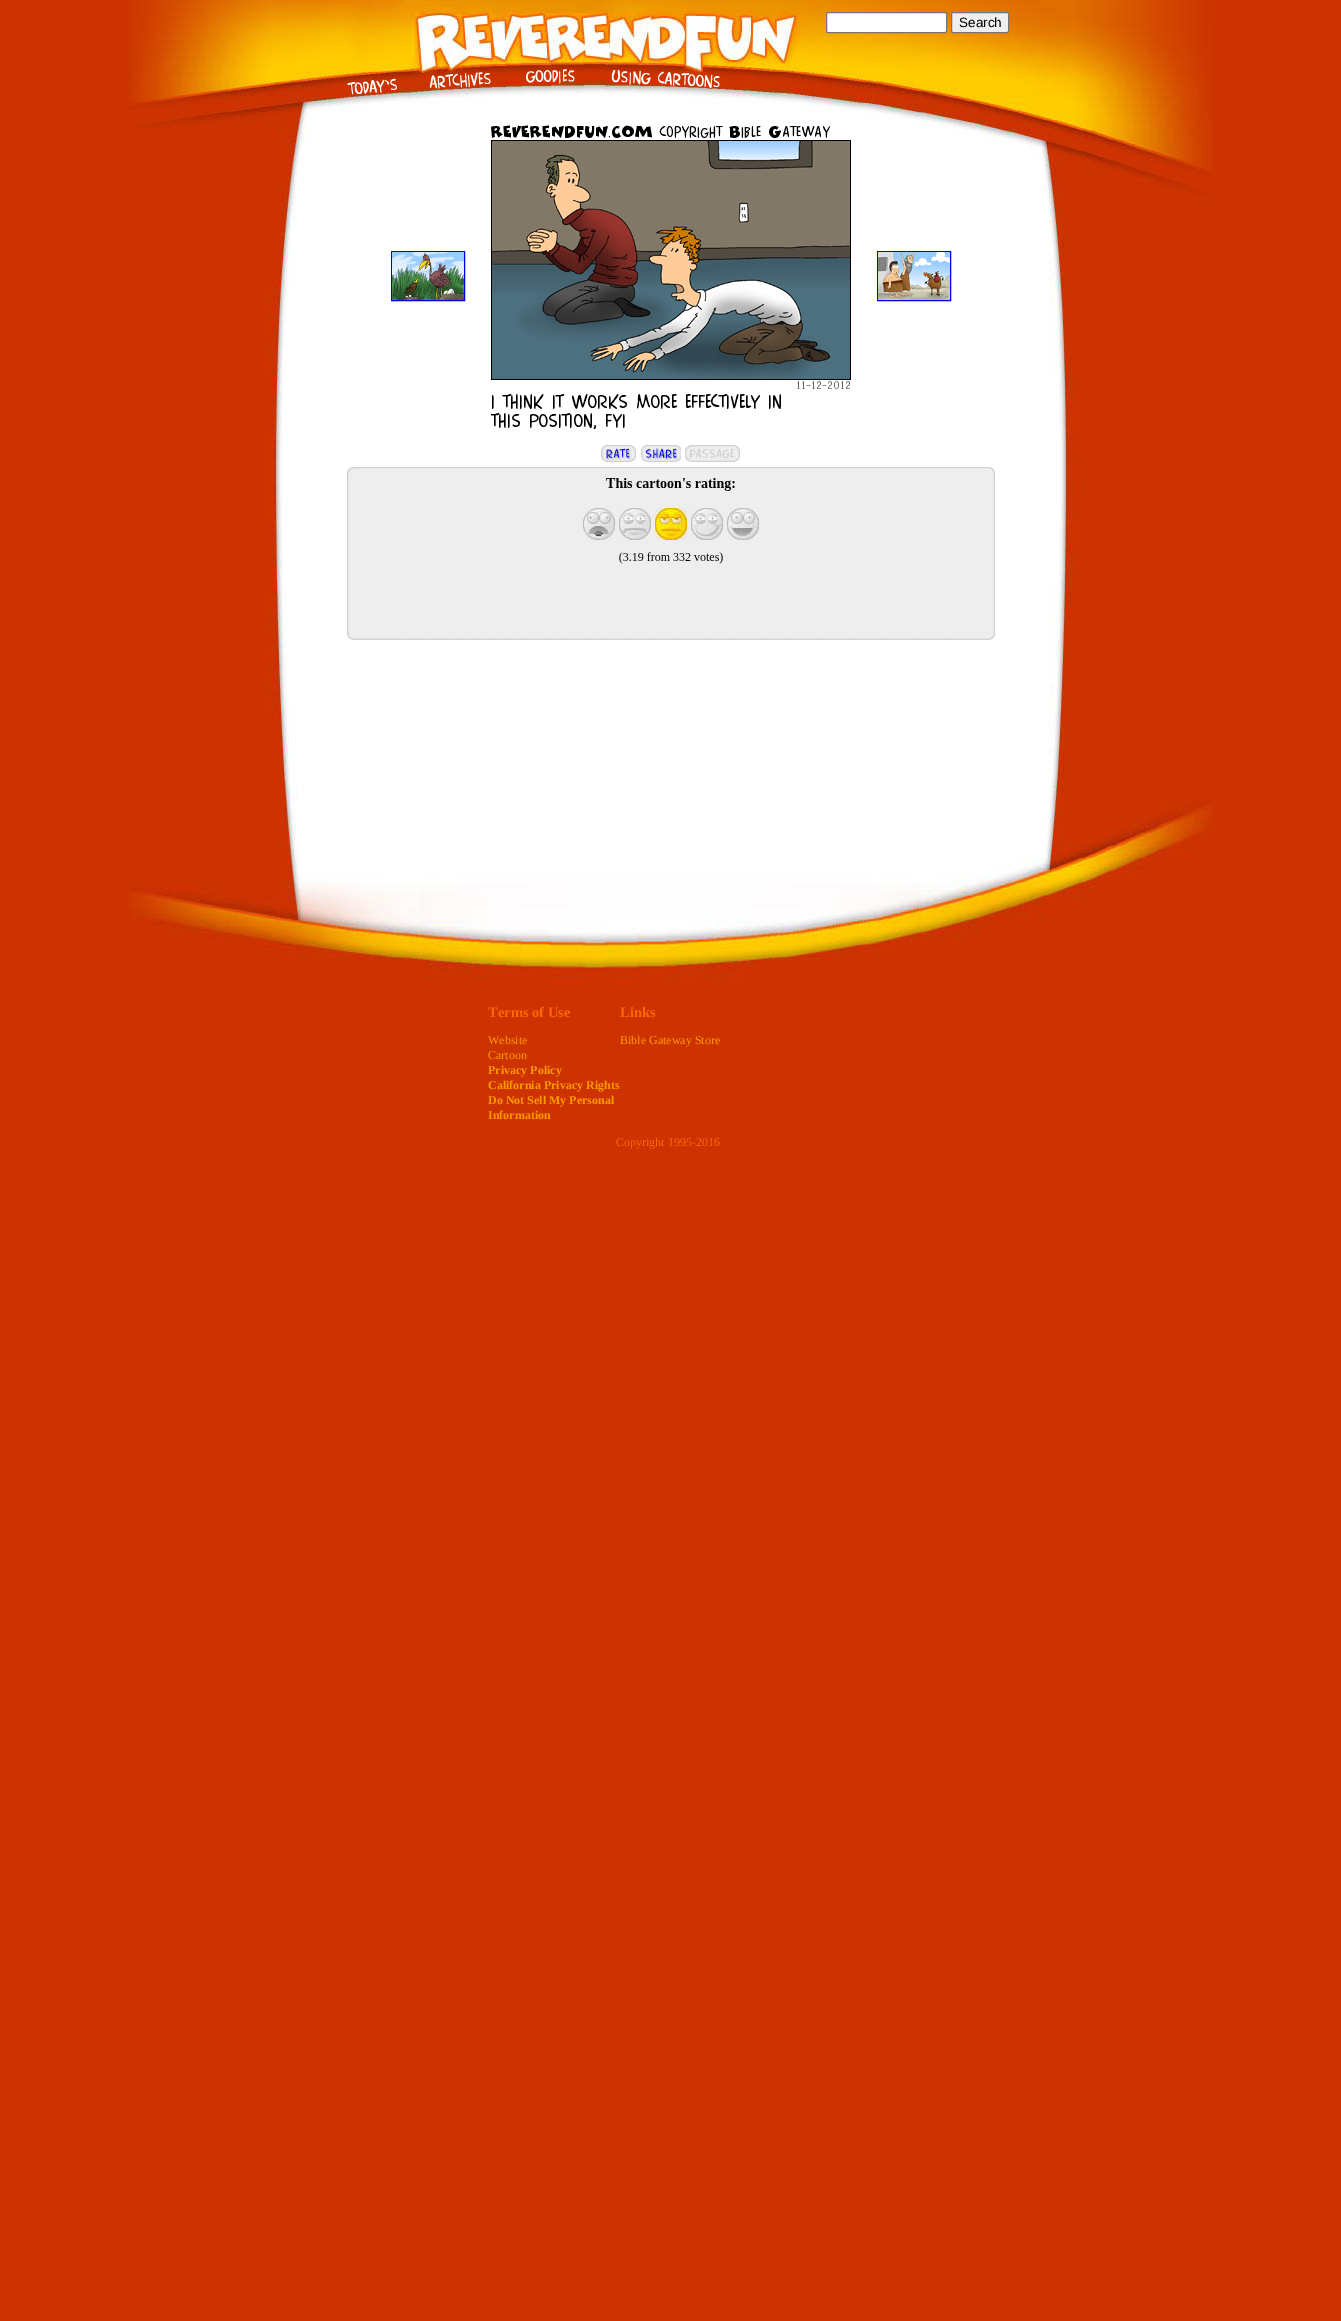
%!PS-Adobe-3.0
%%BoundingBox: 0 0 1341 2321
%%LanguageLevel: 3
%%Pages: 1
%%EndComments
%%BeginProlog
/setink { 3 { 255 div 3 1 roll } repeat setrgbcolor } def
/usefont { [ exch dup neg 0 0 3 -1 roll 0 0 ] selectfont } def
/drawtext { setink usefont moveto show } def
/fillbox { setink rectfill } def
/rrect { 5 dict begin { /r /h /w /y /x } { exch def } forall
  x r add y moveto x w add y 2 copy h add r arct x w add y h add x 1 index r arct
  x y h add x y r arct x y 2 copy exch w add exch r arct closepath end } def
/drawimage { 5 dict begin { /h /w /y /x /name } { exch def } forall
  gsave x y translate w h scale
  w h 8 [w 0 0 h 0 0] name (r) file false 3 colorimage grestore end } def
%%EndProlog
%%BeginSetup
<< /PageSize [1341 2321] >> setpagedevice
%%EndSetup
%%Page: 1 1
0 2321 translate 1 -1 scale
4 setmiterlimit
0 0 1341 2321 204 51 0 fillbox
(assets/img1.rgb) 129 0 1084 984 drawimage
255 255 255 setink
826.5 12.5 120 20 1.5 rrect gsave fill grestore
118 118 118 setink
stroke
239 239 239 setink
951.5 12.5 57 20 1.5 rrect gsave fill grestore
118 118 118 setink
stroke
(Search) 959 27 /LiberationSans-Regular 13.5 0 0 0 drawtext
(assets/img2.rgb) 347 78 50 17 drawimage
(assets/img3.rgb) 429 72 62 17 drawimage
(assets/img4.rgb) 526 69 49 15 drawimage
(assets/img5.rgb) 611 70 109 19 drawimage
0 0 238 setink
391.5 251.5 73 49 rectstroke
(assets/img6.rgb) 392 252 72 48 drawimage
(assets/img7.rgb) 491 125 360 304 drawimage
877.5 251.5 73 49 rectstroke
(assets/img8.rgb) 878 252 72 48 drawimage
(assets/img9.rgb) 601 445 35 17 drawimage
(assets/img10.rgb) 641 445 40 17 drawimage
(assets/img11.rgb) 685 445 55 17 drawimage
(assets/img12.rgb) 347 467 648 9 drawimage
(assets/img13.rgb) 347 476 648 155 drawimage
(assets/img14.rgb) 583 478 176 86 drawimage
(assets/img15.rgb) 347 631 648 9 drawimage
(Terms of Use) 488 1017 /LiberationSerif-Bold 14.5 255 102 0 drawtext
(Website) 488 1044 /LiberationSerif-Regular 12 255 153 0 drawtext
(Cartoon) 488 1059 /LiberationSerif-Regular 12 255 153 0 drawtext
(Privacy Policy) 488 1074 /LiberationSerif-Bold 12 255 153 0 drawtext
(California Privacy Rights) 488 1089 /LiberationSerif-Bold 12 255 153 0 drawtext
(Do Not Sell My Personal) 488 1104 /LiberationSerif-Bold 12 255 153 0 drawtext
(Information) 488 1119 /LiberationSerif-Bold 12 255 153 0 drawtext
(Links) 620 1017 /LiberationSerif-Bold 14.5 255 102 0 drawtext
(Bible Gateway Store) 620 1044 /LiberationSerif-Regular 12 255 153 0 drawtext
(Copyright 1995-2016) 616 1146 /LiberationSerif-Regular 12 255 102 0 drawtext
showpage
%%EOF
